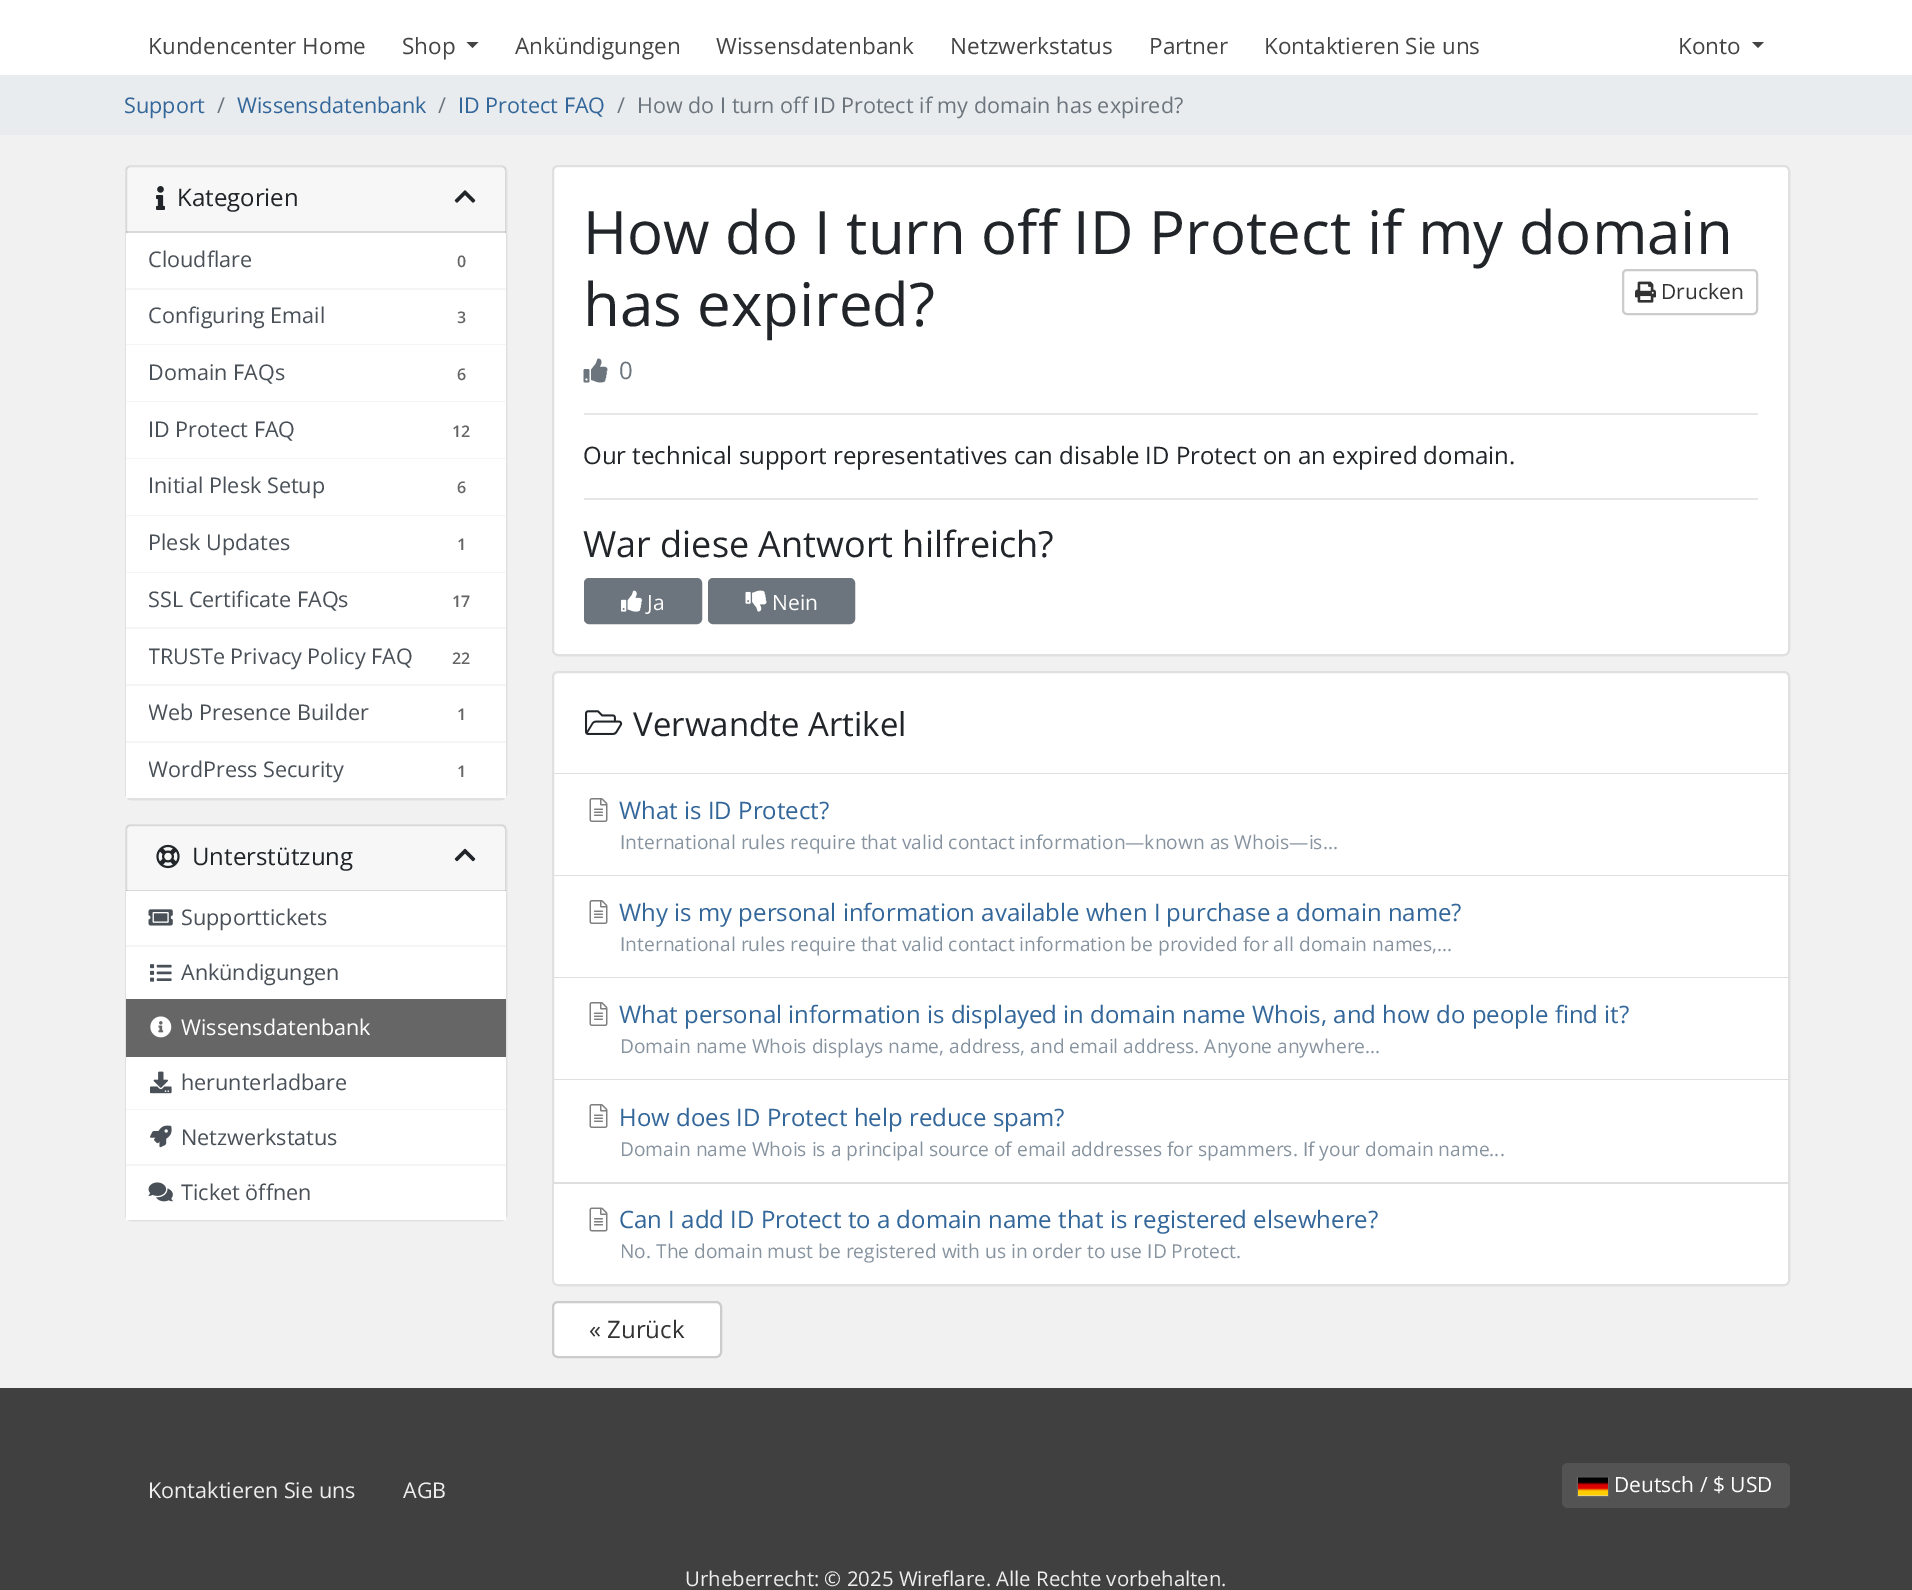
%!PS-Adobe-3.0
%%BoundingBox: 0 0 1912 1590
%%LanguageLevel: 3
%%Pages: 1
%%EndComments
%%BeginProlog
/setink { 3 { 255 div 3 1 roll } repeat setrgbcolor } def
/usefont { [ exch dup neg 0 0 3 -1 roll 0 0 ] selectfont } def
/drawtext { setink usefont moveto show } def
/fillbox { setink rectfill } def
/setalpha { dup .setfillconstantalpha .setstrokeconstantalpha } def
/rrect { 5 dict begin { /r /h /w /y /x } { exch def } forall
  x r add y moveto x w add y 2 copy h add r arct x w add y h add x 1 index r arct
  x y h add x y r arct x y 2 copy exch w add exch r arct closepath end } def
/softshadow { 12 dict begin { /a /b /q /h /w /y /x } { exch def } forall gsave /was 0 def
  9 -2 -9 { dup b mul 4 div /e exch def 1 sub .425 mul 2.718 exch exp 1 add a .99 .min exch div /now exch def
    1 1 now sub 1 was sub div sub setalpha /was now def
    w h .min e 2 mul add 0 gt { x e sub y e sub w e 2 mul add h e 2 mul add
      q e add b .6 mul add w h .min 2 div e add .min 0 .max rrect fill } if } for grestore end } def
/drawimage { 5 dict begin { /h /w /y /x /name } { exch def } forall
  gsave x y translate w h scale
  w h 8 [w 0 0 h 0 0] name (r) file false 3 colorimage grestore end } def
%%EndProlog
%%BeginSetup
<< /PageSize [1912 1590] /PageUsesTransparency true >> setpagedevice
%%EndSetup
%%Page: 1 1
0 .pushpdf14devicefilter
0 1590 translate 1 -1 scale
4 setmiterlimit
0 0 1912 1590 241 241 241 fillbox
0 0 1912 75 255 255 255 fillbox
(Kundencenter Home) 148 54 /OpenSans-Regular 22.5 68 68 68 drawtext
(Shop) 402 54 /OpenSans-Regular 22.5 68 68 68 drawtext
466.5 42 moveto 478.5 42 lineto 472.5 48 lineto closepath fill
(Ankündigungen) 515 54 /OpenSans-Regular 22.5 68 68 68 drawtext
(Wissensdatenbank) 716 54 /OpenSans-Regular 22.5 68 68 68 drawtext
(Netzwerkstatus) 950 54 /OpenSans-Regular 22.5 68 68 68 drawtext
(Partner) 1149 54 /OpenSans-Regular 22.5 68 68 68 drawtext
(Kontaktieren Sie uns) 1264 54 /OpenSans-Regular 22.5 68 68 68 drawtext
(Konto) 1678 54 /OpenSans-Regular 22.5 68 68 68 drawtext
1752 42 moveto 1764 42 lineto 1758 48 lineto closepath fill
0 75 1912 60 233 236 239 fillbox
(Support) 124 113 /OpenSans-Regular 21.6 51 102 153 drawtext
(/) 217 113 /OpenSans-Regular 21.6 108 117 125 drawtext
(Wissensdatenbank) 237 113 /OpenSans-Regular 21.6 51 102 153 drawtext
(/) 438 113 /OpenSans-Regular 21.6 108 117 125 drawtext
(ID Protect FAQ) 458 113 /OpenSans-Regular 21.6 51 102 153 drawtext
(/) 617 113 /OpenSans-Regular 21.6 108 117 125 drawtext
(How do I turn off ID Protect if my domain has expired?) 637 113 /OpenSans-Regular 21.6 108 117 125 drawtext
255 255 255 setink
125 165 382 635 6 rrect fill
0.12 setalpha
0 0 0 setink
2 setlinewidth
126 166 380 633 5 rrect stroke
0.03 setalpha
126 167 380 66 0 0 0 fillbox
0.12 setalpha
126 231 380 2 0 0 0 fillbox
1 setalpha
(assets/img1.rgb) 156 186 9 24 drawimage
(Kategorien) 177 206 /OpenSans-Regular 24 33 37 41 drawtext
(assets/img2.rgb) 454 190 22 13 drawimage
126 233 380 55 255 255 255 fillbox
126 288 380 2 245 245 245 fillbox
(Cloudflare) 148 267 /OpenSans-Regular 21.6 73 80 87 drawtext
(0) 457 267 /OpenSans-SemiBold 16 102 102 102 drawtext
126 290 380 54 255 255 255 fillbox
126 344 380 1 245 245 245 fillbox
(Configuring Email) 148 323 /OpenSans-Regular 21.6 73 80 87 drawtext
(3) 457 323 /OpenSans-SemiBold 16 102 102 102 drawtext
126 345 380 56 255 255 255 fillbox
126 401 380 1 245 245 245 fillbox
(Domain FAQs) 148 380 /OpenSans-Regular 21.6 73 80 87 drawtext
(6) 457 380 /OpenSans-SemiBold 16 102 102 102 drawtext
126 402 380 56 255 255 255 fillbox
126 458 380 1 245 245 245 fillbox
(ID Protect FAQ) 148 437 /OpenSans-Regular 21.6 73 80 87 drawtext
(12) 452 437 /OpenSans-SemiBold 16 102 102 102 drawtext
126 459 380 56 255 255 255 fillbox
126 515 380 1 245 245 245 fillbox
(Initial Plesk Setup) 148 493 /OpenSans-Regular 21.6 73 80 87 drawtext
(6) 457 493 /OpenSans-SemiBold 16 102 102 102 drawtext
126 516 380 56 255 255 255 fillbox
126 572 380 1 245 245 245 fillbox
(Plesk Updates) 148 550 /OpenSans-Regular 21.6 73 80 87 drawtext
(1) 457 550 /OpenSans-SemiBold 16 102 102 102 drawtext
126 573 380 54 255 255 255 fillbox
126 627 380 2 245 245 245 fillbox
(SSL Certificate FAQs) 148 607 /OpenSans-Regular 21.6 73 80 87 drawtext
(17) 452 607 /OpenSans-SemiBold 16 102 102 102 drawtext
126 629 380 55 255 255 255 fillbox
126 684 380 2 245 245 245 fillbox
gsave
149 639 264 33 rectclip
(TRUSTe Privacy Policy FAQ) 148 664 /OpenSans-Regular 21.6 73 80 87 drawtext
grestore
(22) 452 664 /OpenSans-SemiBold 16 102 102 102 drawtext
126 686 380 55 255 255 255 fillbox
126 741 380 2 245 245 245 fillbox
gsave
149 696 220 33 rectclip
(Web Presence Builder) 148 720 /OpenSans-Regular 21.6 73 80 87 drawtext
grestore
(1) 457 720 /OpenSans-SemiBold 16 102 102 102 drawtext
126 743 380 55 255 255 255 fillbox
gsave
149 753 195 33 rectclip
(WordPress Security) 148 777 /OpenSans-Regular 21.6 73 80 87 drawtext
grestore
(1) 457 777 /OpenSans-SemiBold 16 102 102 102 drawtext
255 255 255 setink
125 824 382 397 6 rrect fill
0.12 setalpha
0 0 0 setink
126 825 380 395 5 rrect stroke
0.03 setalpha
126 825 380 66 0 0 0 fillbox
0.12 setalpha
126 890 380 1 0 0 0 fillbox
1 setalpha
(assets/img3.rgb) 156 844 24 25 drawimage
(Unterstützung) 192 865 /OpenSans-Regular 24 33 37 41 drawtext
(assets/img4.rgb) 454 848 22 14 drawimage
126 891 380 54 255 255 255 fillbox
126 945 380 2 245 245 245 fillbox
(assets/img5.rgb) 148 909 25 17 drawimage
(Supporttickets) 181 925 /OpenSans-Regular 21.6 73 80 87 drawtext
126 947 380 52 255 255 255 fillbox
(assets/img6.rgb) 150 964 22 18 drawimage
(Ankündigungen) 181 980 /OpenSans-Regular 21.6 73 80 87 drawtext
126 999 380 58 102 102 102 fillbox
(assets/img7.rgb) 150 1016 22 22 drawimage
(Wissensdatenbank) 181 1035 /OpenSans-Regular 21.6 255 255 255 drawtext
126 1057 380 52 255 255 255 fillbox
126 1109 380 1 245 245 245 fillbox
(assets/img8.rgb) 150 1071 22 23 drawimage
(herunterladbare) 181 1090 /OpenSans-Regular 21.6 73 80 87 drawtext
126 1110 380 54 255 255 255 fillbox
126 1164 380 2 245 245 245 fillbox
(assets/img9.rgb) 150 1125 22 23 drawimage
(Netzwerkstatus) 181 1145 /OpenSans-Regular 21.6 73 80 87 drawtext
126 1166 380 54 255 255 255 fillbox
(assets/img10.rgb) 148 1182 25 20 drawimage
(Ticket öffnen) 181 1200 /OpenSans-Regular 21.6 73 80 87 drawtext
255 255 255 setink
552 165 1238 491 6 rrect fill
0.12 setalpha
0 0 0 setink
553 166 1236 489 5 rrect stroke
1 setalpha
(How do I turn off ID Protect if my domain) 583 254 /OpenSans-Regular 60 33 37 41 drawtext
(has expired?) 583 326 /OpenSans-Regular 60 33 37 41 drawtext
204 204 204 setink
1623 270 134 44 4 rrect stroke
(assets/img11.rgb) 1635 281 21 22 drawimage
(Drucken) 1661 299 /OpenSans-Regular 21 51 51 51 drawtext
(assets/img12.rgb) 583 358 25 25 drawimage
(0) 619 379 /OpenSans-Regular 24 108 117 125 drawtext
584 413 1174 2 230 230 230 fillbox
(Our technical support representatives can disable ID Protect on an expired domain.) 583 464 /OpenSans-Regular 24 33 37 41 drawtext
584 498 1174 2 230 230 230 fillbox
(War diese Antwort hilfreich?) 583 557 /OpenSans-Regular 36 33 37 41 drawtext
108 117 125 setink
585 579 116 44 4 rrect gsave fill grestore
stroke
(assets/img13.rgb) 621 590 21 22 drawimage
(Ja) 647 610 /OpenSans-Regular 21 255 255 255 drawtext
108 117 125 setink
709 579 145 44 4 rrect gsave fill grestore
stroke
(assets/img14.rgb) 745 590 22 22 drawimage
(Nein) 772 610 /OpenSans-Regular 21 255 255 255 drawtext
552 671 1238 615 6 rrect fill
0.12 setalpha
0 0 0 setink
553 672 1236 613 5 rrect stroke
1 setalpha
(assets/img15.rgb) 585 710 38 25 drawimage
(Verwandte Artikel) 633 736 /OpenSans-Regular 33 33 37 41 drawtext
554 773 1234 1 223 223 223 fillbox
554 875 1234 1 223 223 223 fillbox
(assets/img16.rgb) 589 798 19 24 drawimage
(What is ID Protect?) 619 819 /OpenSans-Regular 24 51 102 153 drawtext
(International rules require that valid contact information—known as Whois—is...) 620 849 /OpenSans-Regular 19.2 135 147 159 drawtext
554 977 1234 1 223 223 223 fillbox
(assets/img16.rgb) 589 900 19 24 drawimage
(Why is my personal information available when I purchase a domain name?) 619 921 /OpenSans-Regular 24 51 102 153 drawtext
(International rules require that valid contact information be provided for all domain names,...) 620 951 /OpenSans-Regular 19.2 135 147 159 drawtext
554 1079 1234 1 223 223 223 fillbox
(assets/img16.rgb) 589 1002 19 24 drawimage
(What personal information is displayed in domain name Whois, and how do people find it?) 619 1023 /OpenSans-Regular 24 51 102 153 drawtext
(Domain name Whois displays name, address, and email address. Anyone anywhere...) 620 1053 /OpenSans-Regular 19.2 135 147 159 drawtext
554 1182 1234 2 223 223 223 fillbox
(assets/img16.rgb) 589 1104 19 24 drawimage
(How does ID Protect help reduce spam?) 619 1126 /OpenSans-Regular 24 51 102 153 drawtext
(Domain name Whois is a principal source of email addresses for spammers. If your domain name...) 620 1156 /OpenSans-Regular 19.2 135 147 159 drawtext
255 255 255 setink
554 1184 moveto 1788 1184 lineto 1788 1279 lineto 1788 1282 1786 1284 1783 1284 curveto 559 1284 lineto 556 1284 554 1282 554 1279 curveto closepath fill
(assets/img17.rgb) 589 1207 19 25 drawimage
(Can I add ID Protect to a domain name that is registered elsewhere?) 619 1228 /OpenSans-Regular 24 51 102 153 drawtext
(No. The domain must be registered with us in order to use ID Protect.) 620 1258 /OpenSans-Regular 19.2 135 147 159 drawtext
255 255 255 setink
553 1302 168 55 5 rrect gsave fill grestore
204 204 204 setink
stroke
(« Zurück) 589 1338 /OpenSans-Regular 24 51 51 51 drawtext
0 1388 1912 202 64 64 64 fillbox
(Kontaktieren Sie uns) 148 1498 /OpenSans-Regular 21.6 238 238 238 drawtext
(AGB) 403 1498 /OpenSans-Regular 21.6 238 238 238 drawtext
83 83 83 setink
1562 1463 228 45 6 rrect fill
136 136 136 setink
1578 1478 30 18 0 1 1 softshadow
1578 1495 30 1 219 219 219 fillbox
(assets/img18.rgb) 1578 1477 30 19 drawimage
(Deutsch / $ USD) 1614 1492 /OpenSans-Regular 21 255 255 255 drawtext
(Urheberrecht: © 2025 Wireflare. Alle Rechte vorbehalten.) 685 1586 /OpenSans-Regular 20.4 238 238 238 drawtext
.poppdf14devicefilter showpage
%%EOF
